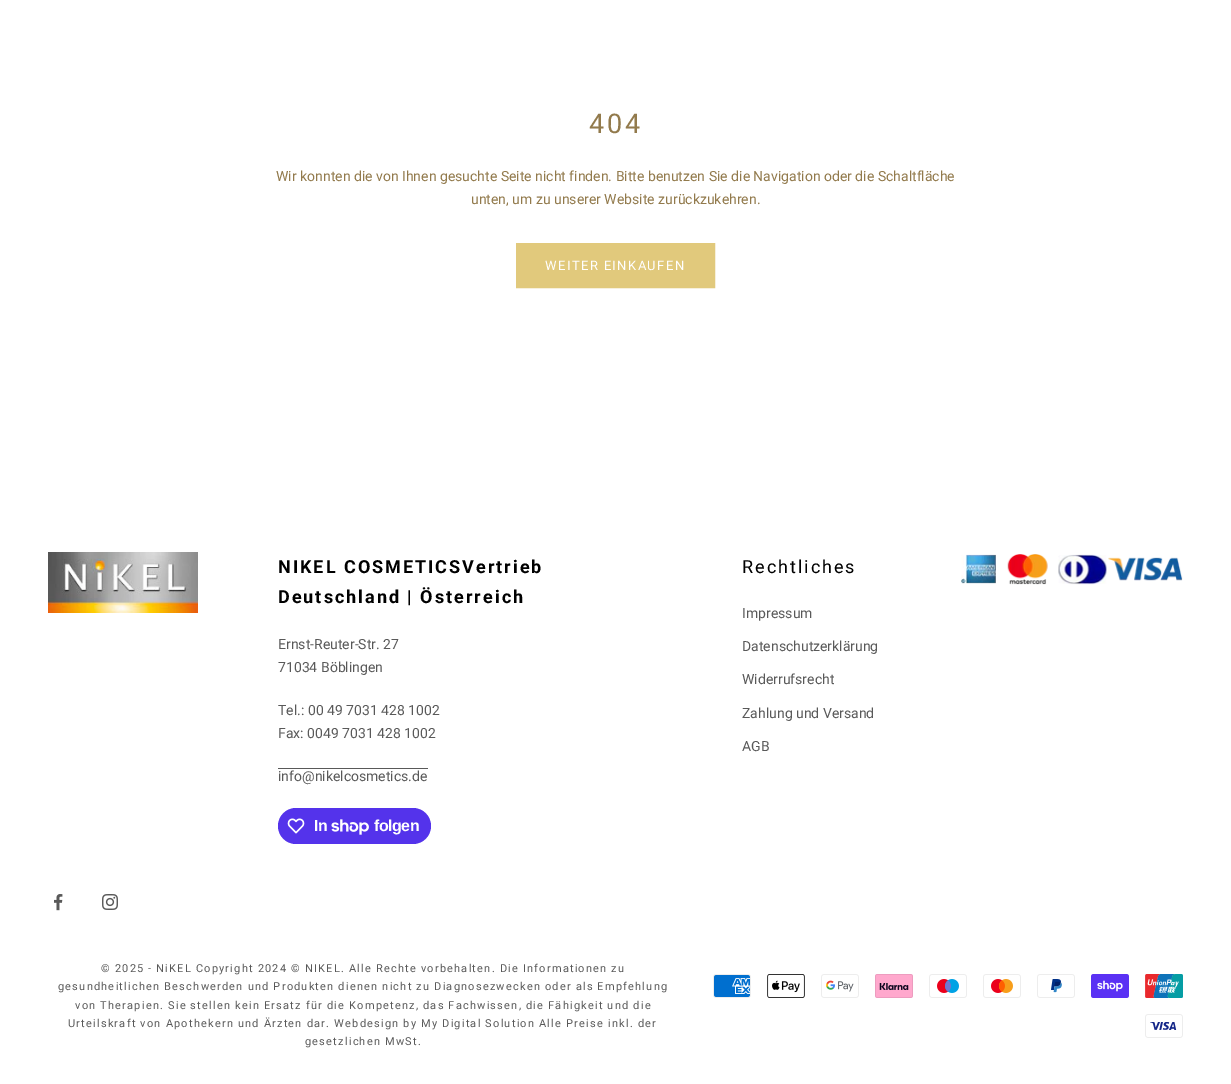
%!PS-Adobe-3.0
%%BoundingBox: 0 0 1231 1084
%%LanguageLevel: 3
%%Pages: 1
%%EndComments
%%BeginProlog
/setink { 3 { 255 div 3 1 roll } repeat setrgbcolor } def
/usefont { [ exch dup neg 0 0 3 -1 roll 0 0 ] selectfont } def
/drawtext { setink usefont moveto show } def
/fillbox { setink rectfill } def
/rrect { 5 dict begin { /r /h /w /y /x } { exch def } forall
  x r add y moveto x w add y 2 copy h add r arct x w add y h add x 1 index r arct
  x y h add x y r arct x y 2 copy exch w add exch r arct closepath end } def
/drawimage { 5 dict begin { /h /w /y /x /name } { exch def } forall
  gsave x y translate w h scale
  w h 8 [w 0 0 h 0 0] name (r) file false 3 colorimage grestore end } def
%%EndProlog
%%BeginSetup
<< /PageSize [1231 1084] >> setpagedevice
%%EndSetup
%%Page: 1 1
0 1084 translate 1 -1 scale
4 setmiterlimit
0 0 1231 1084 255 255 255 fillbox
/Roboto-Regular 27 usefont
146 122 76 setink
589 133 moveto 3 0 (404) ashow
(Wir konnten die von Ihnen gesuchte Seite nicht finden. Bitte benutzen Sie die Navigation oder die Schaltfläche) 276 181 /Roboto-Regular 14 146 122 76 drawtext
(unten, um zu unserer Website zurückzukehren.) 471 204 /Roboto-Regular 14 146 122 76 drawtext
225 201 124 setink
516.5 243.5 moveto 714.5 243.5 lineto 714.5 287.5 lineto 516.5 287.5 lineto closepath gsave fill grestore
stroke
/Roboto-Regular 13 usefont
255 255 255 setink
545 270 moveto 1.4 0 (WEITER EINKAUFEN) ashow
(assets/img1.rgb) 48 552 150 61 drawimage
/Roboto-Bold 18 usefont
0 0 0 setink
278 573 moveto 2 0 (NIKEL COSMETICSVertrieb) ashow
278 603 moveto 2 0 (Deutschland | Österreich) ashow
(Ernst-Reuter-Str. 27) 278 649 /Roboto-Regular 14 89 89 89 drawtext
(71034 Böblingen) 278 672 /Roboto-Regular 14 89 89 89 drawtext
(Tel.: 00 49 7031 428 1002) 278 715 /Roboto-Regular 14 89 89 89 drawtext
(Fax: 0049 7031 428 1002) 278 738 /Roboto-Regular 14 89 89 89 drawtext
(info@nikelcosmetics.de) 278 781 /Roboto-Regular 14 89 89 89 drawtext
278 768 150 1 89 89 89 fillbox
84 51 235 setink
278 808 153 36 18 rrect fill
(assets/img2.rgb) 287 818 18 16 drawimage
/LiberationSans-Bold 16 usefont
255 255 255 setink
314 831 moveto -0.5 0 (In) ashow
(assets/img3.rgb) 331 819 38 16 drawimage
374 831 moveto -0.5 0 (folgen) ashow
/Roboto-Regular 18 usefont
0 0 0 setink
742 573 moveto 2 0 (Rechtliches) ashow
(Impressum) 742 618 /Roboto-Regular 14 89 89 89 drawtext
(Datenschutzerklärung) 742 651 /Roboto-Regular 14 89 89 89 drawtext
(Widerrufsrecht) 742 684 /Roboto-Regular 14 89 89 89 drawtext
(Zahlung und Versand) 742 718 /Roboto-Regular 14 89 89 89 drawtext
(AGB) 742 751 /Roboto-Regular 14 89 89 89 drawtext
(assets/img4.rgb) 961 554 222 31 drawimage
(assets/img5.rgb) 54 894 9 17 drawimage
(assets/img6.rgb) 102 894 16 16 drawimage
/Roboto-Regular 11 usefont
101 972 moveto 1.2 0 (© 2025 - NiKEL Copyright 2024 © NIKEL. Alle Rechte vorbehalten. Die Informationen zu) ashow
58 990 moveto 1.2 0 (gesundheitlichen Beschwerden und Produkten dienen nicht zu Diagnosezwecken oder als Empfehlung) ashow
75 1009 moveto 1.2 0 (von Therapien. Sie stellen kein Ersatz für die Kompetenz, das Fachwissen, die Fähigkeit und die) ashow
68 1027 moveto 1.2 0 (Urteilskraft von Apothekern und Ärzten dar. Webdesign by My Digital Solution Alle Preise inkl. der) ashow
305 1045 moveto 1.2 0 (gesetzlichen MwSt.) ashow
(assets/img7.rgb) 713 974 38 24 drawimage
(assets/img8.rgb) 767 974 38 24 drawimage
(assets/img9.rgb) 821 974 38 24 drawimage
(assets/img10.rgb) 875 974 38 24 drawimage
(assets/img11.rgb) 929 974 38 24 drawimage
(assets/img12.rgb) 983 974 38 24 drawimage
(assets/img13.rgb) 1037 974 38 24 drawimage
(assets/img14.rgb) 1091 974 38 24 drawimage
(assets/img15.rgb) 1145 974 38 24 drawimage
(assets/img16.rgb) 1145 1014 38 24 drawimage
showpage
%%EOF
